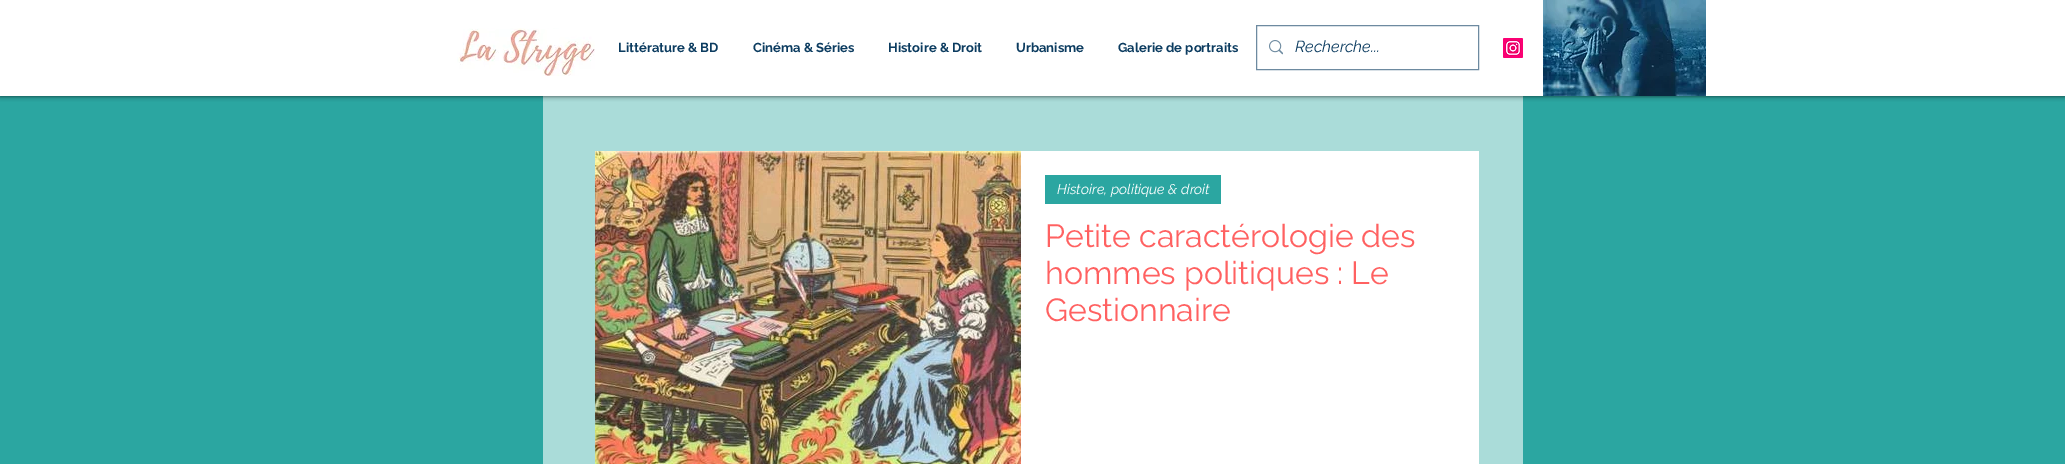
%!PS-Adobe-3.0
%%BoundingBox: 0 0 2065 464
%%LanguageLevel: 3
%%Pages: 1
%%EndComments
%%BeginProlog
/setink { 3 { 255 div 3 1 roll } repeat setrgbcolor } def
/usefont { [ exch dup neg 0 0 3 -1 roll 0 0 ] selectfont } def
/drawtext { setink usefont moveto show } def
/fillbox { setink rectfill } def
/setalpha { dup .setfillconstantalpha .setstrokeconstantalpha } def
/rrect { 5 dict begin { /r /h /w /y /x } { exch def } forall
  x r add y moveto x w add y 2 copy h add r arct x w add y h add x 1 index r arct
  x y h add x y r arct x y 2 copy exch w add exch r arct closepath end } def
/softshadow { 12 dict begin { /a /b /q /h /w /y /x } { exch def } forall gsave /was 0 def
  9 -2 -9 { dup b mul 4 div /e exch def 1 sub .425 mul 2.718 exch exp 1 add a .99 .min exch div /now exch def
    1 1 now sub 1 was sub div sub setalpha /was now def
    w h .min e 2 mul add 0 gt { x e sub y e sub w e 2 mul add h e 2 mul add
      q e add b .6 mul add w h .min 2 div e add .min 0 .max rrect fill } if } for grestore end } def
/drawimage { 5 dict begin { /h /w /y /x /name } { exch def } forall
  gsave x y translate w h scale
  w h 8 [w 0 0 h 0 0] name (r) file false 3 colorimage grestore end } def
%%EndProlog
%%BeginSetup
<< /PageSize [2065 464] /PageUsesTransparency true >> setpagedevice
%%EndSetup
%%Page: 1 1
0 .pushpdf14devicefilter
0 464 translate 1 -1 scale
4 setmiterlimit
0 0 2065 464 43 166 161 fillbox
543 96 980 368 170 220 217 fillbox
0 0 0 setink
0 0 2065 96 0 2.5 0.7 softshadow
0 0 2065 96 255 255 255 fillbox
(assets/img1.rgb) 457 28 138 48 drawimage
(Littérature & BD) 618 52 /Raleway-Bold 13 12 60 96 drawtext
(Cinéma & Séries) 753 52 /Raleway-Bold 13 12 60 96 drawtext
(Histoire & Droit) 888 52 /Raleway-Bold 13 12 60 96 drawtext
(Urbanisme) 1016 52 /Raleway-Bold 13 12 60 96 drawtext
(Galerie de portraits) 1118 52 /Raleway-Bold 13 12 60 96 drawtext
109 138 160 setink
1256.5 25.5 222 44 rectstroke
(assets/img2.rgb) 1269 40 14 15 drawimage
(Recherche...) 1295 52 /Raleway-Italic 16 12 60 96 drawtext
(assets/img3.rgb) 1503 38 20 20 drawimage
(assets/img4.rgb) 1543 0 163 96 drawimage
(assets/img5.rgb) 595 151 426 313 drawimage
1021 151 458 313 255 255 255 fillbox
1045 175 176 29 43 166 161 fillbox
(Histoire, politique & droit) 1057 194 /Raleway-Italic 14 255 255 255 drawtext
(Petite caractérologie des) 1045 247 /Raleway-Regular 32 255 97 97 drawtext
(hommes politiques : Le) 1045 284 /Raleway-Regular 32 255 97 97 drawtext
(Gestionnaire) 1045 321 /Raleway-Regular 32 255 97 97 drawtext
.poppdf14devicefilter showpage
%%EOF
